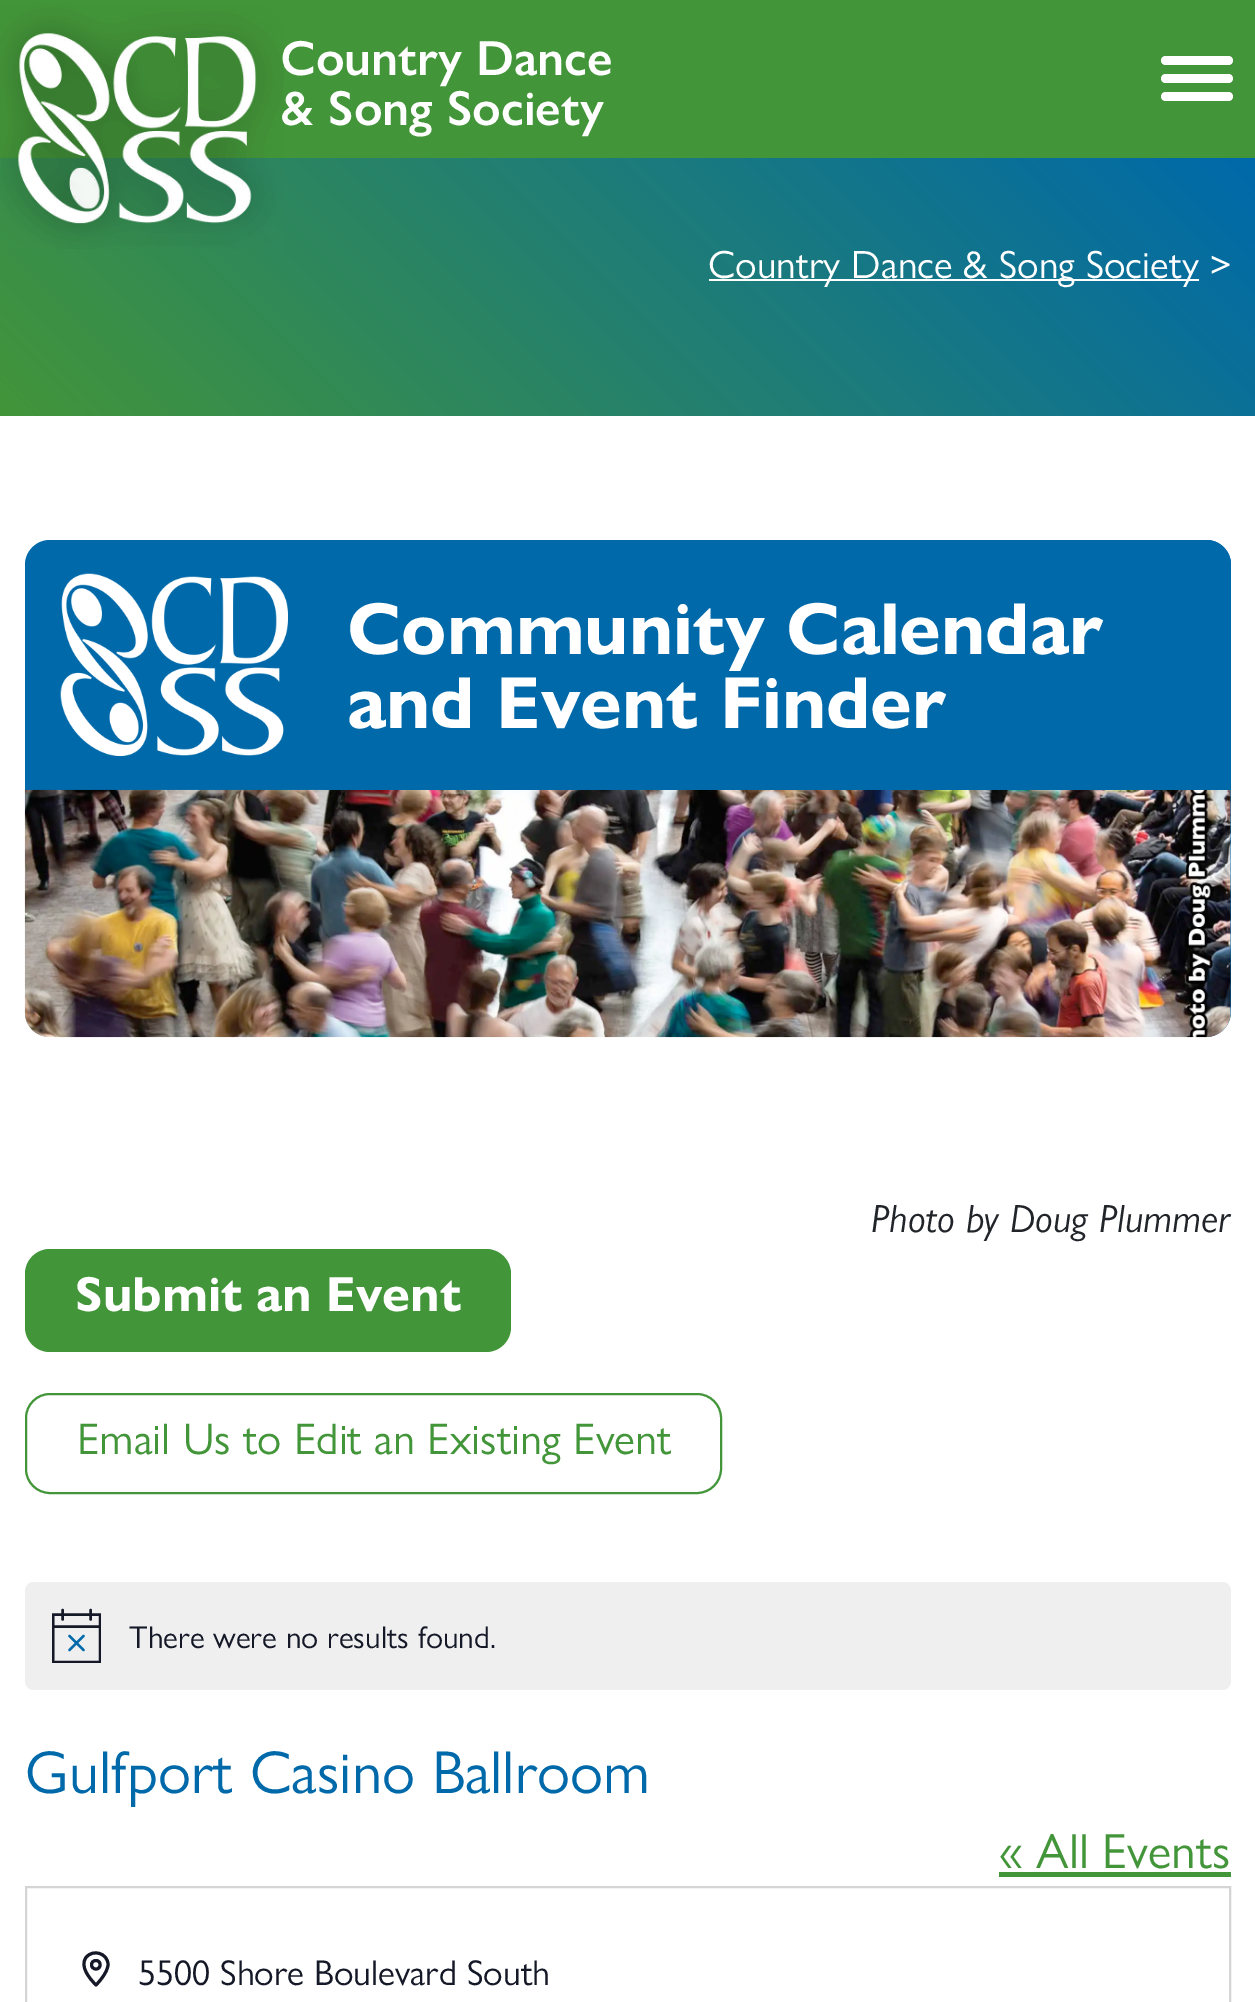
%!PS-Adobe-3.0
%%BoundingBox: 0 0 1255 2002
%%LanguageLevel: 3
%%Pages: 1
%%EndComments
%%BeginProlog
/setink { 3 { 255 div 3 1 roll } repeat setrgbcolor } def
/usefont { [ exch dup neg 0 0 3 -1 roll 0 0 ] selectfont } def
/drawtext { setink usefont moveto show } def
/fillbox { setink rectfill } def
/rrect { 5 dict begin { /r /h /w /y /x } { exch def } forall
  x r add y moveto x w add y 2 copy h add r arct x w add y h add x 1 index r arct
  x y h add x y r arct x y 2 copy exch w add exch r arct closepath end } def
/drawimage { 5 dict begin { /h /w /y /x /name } { exch def } forall
  gsave x y translate w h scale
  w h 8 [w 0 0 h 0 0] name (r) file false 3 colorimage grestore end } def
%%EndProlog
%%BeginSetup
<< /PageSize [1255 2002] >> setpagedevice
%%EndSetup
%%Page: 1 1
0 2002 translate 1 -1 scale
4 setmiterlimit
0 0 1255 2002 255 255 255 fillbox
0 0 1255 158 67 149 57 fillbox
(Country Dance) 280 75 /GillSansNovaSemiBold-SemiBold 49.5 255 255 255 drawtext
(& Song Society) 280 125 /GillSansNovaSemiBold-SemiBold 49.5 255 255 255 drawtext
gsave 0 158 moveto 1255 158 lineto 1255 416 lineto 0 416 lineto closepath clip newpath
<< /ShadingType 2 /ColorSpace /DeviceRGB /Coords [249 665 1006 -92] /Extend [true true] /Function << /FunctionType 2 /Domain [0 1] /C0 [0.263 0.584 0.224] /C1 [0 0.412 0.667] /N 1 >> >> shfill grestore
(assets/img1.rgb) 0 4 284 245 drawimage
1161 56 72 9 4.5 rrect fill
1161 74 72 9 4.5 rrect fill
1161 92 72 9 4.5 rrect fill
709 279 490 2 255 255 255 fillbox
(Country Dance & Song Society) 708 278 /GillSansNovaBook-Regular 39.6 255 255 255 drawtext
(>) 1210 278 /GillSansNovaBook-Regular 39.6 255 255 255 drawtext
0 105 170 setink
25 540 1206 497 25 rrect fill
(assets/img2.rgb) 60 573 228 183 drawimage
(assets/img3.rgb) 24 789 1207 249 drawimage
347 540 moveto 1206 540 lineto 1220 540 1231 551 1231 565 curveto 1231 790 lineto 322 790 lineto 322 565 lineto 322 551 333 540 347 540 curveto closepath fill
(Community Calendar) 347 654 /GillSansNovaBook-Bold 74.25 255 255 255 drawtext
(and Event Finder) 347 728 /GillSansNovaBook-Bold 74.25 255 255 255 drawtext
(Photo by Doug Plummer) 871 1232 /GillSansNovaBook-Italic 39.6 33 37 41 drawtext
67 149 57 setink
25 1249 486 103 25 rrect fill
(Submit an Event) 75 1311 /GillSansNovaBook-Bold 49.5 255 255 255 drawtext
67 149 57 setink
2 setlinewidth
26 1394 695 99 24 rrect stroke
(Email Us to Edit an Existing Event) 77 1454 /GillSansNovaBook-Regular 44.5 67 149 57 drawtext
239 239 240 setink
25 1582 1206 108 9 rrect fill
gsave
52 1609 49 54 rectclip
20 24 39 setink
2.4 setlinewidth
53 1614.5 moveto 100 1614.5 lineto 100 1662 lineto 53 1662 lineto closepath stroke
grestore
0 105 170 setink
2.4 setlinewidth
1 setlinecap
69.5 1636 moveto 83.5 1650 lineto 83.5 1636 moveto 69.5 1650 lineto stroke
20 24 39 setink
62.5 1610 moveto 62.5 1619.5 lineto 90.5 1610 moveto 90.5 1619.5 lineto stroke
gsave
52 1609 49 54 rectclip
2 setlinecap
53 1626.5 moveto 100 1626.5 lineto stroke
grestore
(There were no results found.) 129 1648 /GillSansNovaBook-Regular 31.5 20 24 39 drawtext
(Gulfport Casino Ballroom) 25 1793 /GillSansNovaBook-Regular 60.75 0 105 170 drawtext
(« All Events) 999 1868 /GillSansNovaBook-Regular 49.5 67 149 57 drawtext
999 1872 232 5 67 149 57 fillbox
213 213 213 setink
2 setlinewidth
0 setlinecap
26 1887 1204 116 rectstroke
20 24 39 setink
3 setlinewidth
1 setlinecap
1 setlinejoin
108 1964.5 moveto 108 1973 96 1985 96 1985 curveto 89.5 1978.5 79.5 1966.5 86 1957.5 curveto 93 1948.5 108 1953.5 108 1964.5 curveto closepath 96 1969 moveto 101.5 1969 101.5 1960.5 96 1960.5 curveto 90 1960.5 90 1969 96 1969 curveto closepath stroke
(5500 Shore Boulevard South) 138 1985 /GillSansNovaBook-Regular 36 20 24 39 drawtext
showpage
%%EOF
